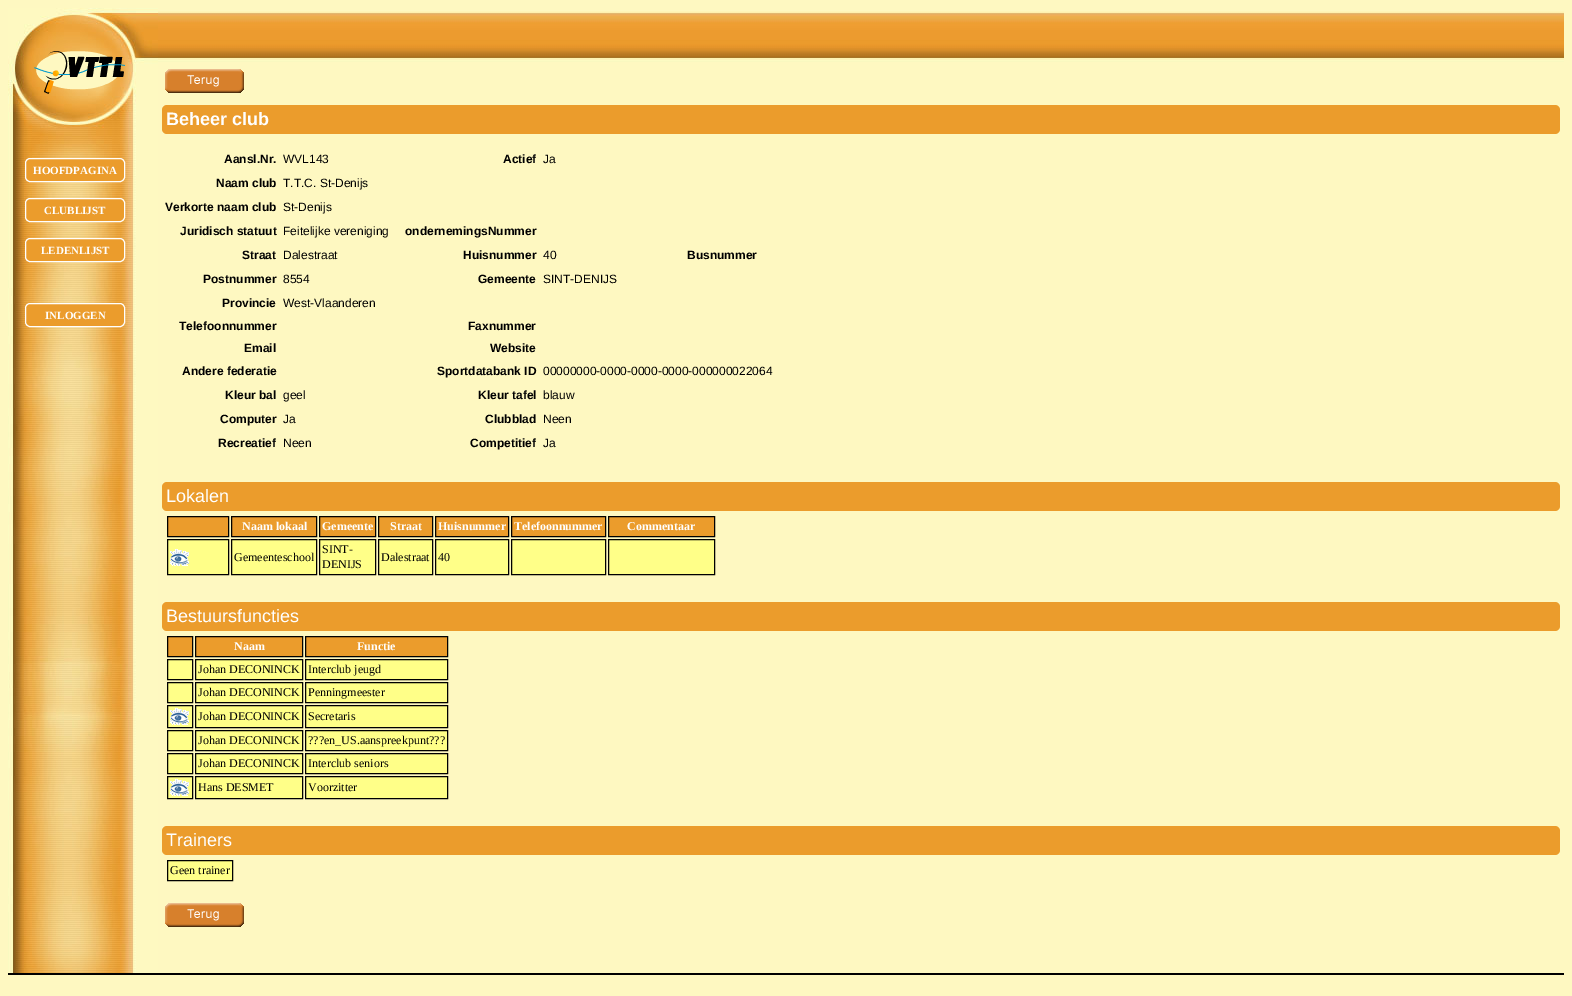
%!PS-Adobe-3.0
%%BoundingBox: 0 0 1572 996
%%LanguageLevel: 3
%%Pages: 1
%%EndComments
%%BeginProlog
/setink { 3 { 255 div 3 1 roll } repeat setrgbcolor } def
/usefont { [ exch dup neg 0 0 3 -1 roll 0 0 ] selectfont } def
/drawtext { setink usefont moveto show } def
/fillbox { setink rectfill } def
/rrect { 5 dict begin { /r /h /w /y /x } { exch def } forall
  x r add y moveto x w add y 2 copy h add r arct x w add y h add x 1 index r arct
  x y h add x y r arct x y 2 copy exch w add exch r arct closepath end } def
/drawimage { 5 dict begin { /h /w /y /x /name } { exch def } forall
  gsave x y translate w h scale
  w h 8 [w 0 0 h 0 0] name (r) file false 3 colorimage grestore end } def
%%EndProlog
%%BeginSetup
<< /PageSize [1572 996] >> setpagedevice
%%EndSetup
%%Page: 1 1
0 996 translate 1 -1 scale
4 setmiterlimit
0 0 1572 996 254 248 193 fillbox
(assets/img1.rgb) 8 8 150 965 drawimage
(assets/img2.rgb) 32 51 93 44 drawimage
235 156 44 setink
25.5 158.5 99 23 4.5 rrect gsave fill grestore
255 255 255 setink
stroke
(HOOFDPAGINA) 33 174 /LiberationSerif-Bold 11 255 255 255 drawtext
235 156 44 setink
25.5 198.5 99 23 4.5 rrect gsave fill grestore
255 255 255 setink
stroke
(CLUBLIJST) 44 214 /LiberationSerif-Bold 11 255 255 255 drawtext
235 156 44 setink
25.5 238.5 99 23 4.5 rrect gsave fill grestore
255 255 255 setink
stroke
(LEDENLIJST) 41 254 /LiberationSerif-Bold 11 255 255 255 drawtext
235 156 44 setink
25.5 303.5 99 23 4.5 rrect gsave fill grestore
255 255 255 setink
stroke
(INLOGGEN) 45 319 /LiberationSerif-Bold 11 255 255 255 drawtext
(assets/img3.rgb) 158 11 1406 51 drawimage
(assets/img4.rgb) 165 69 79 24 drawimage
235 156 44 setink
162 105 1398 29 5 rrect fill
(Beheer club) 166 125 /LiberationSans-Bold 18 255 255 255 drawtext
(Aansl.Nr.) 224 163 /LiberationSans-Bold 12 0 0 0 drawtext
(WVL143) 283 163 /LiberationSans-Regular 12 0 0 0 drawtext
(Actief) 503 163 /LiberationSans-Bold 12 0 0 0 drawtext
(Ja) 543 163 /LiberationSans-Regular 12 0 0 0 drawtext
(Naam club) 216 187 /LiberationSans-Bold 12 0 0 0 drawtext
(T.T.C. St-Denijs) 283 187 /LiberationSans-Regular 12 0 0 0 drawtext
(Verkorte naam club) 165 211 /LiberationSans-Bold 12 0 0 0 drawtext
(St-Denijs) 283 211 /LiberationSans-Regular 12 0 0 0 drawtext
(Juridisch statuut) 180 235 /LiberationSans-Bold 12 0 0 0 drawtext
(Feitelijke vereniging) 283 235 /LiberationSans-Regular 12 0 0 0 drawtext
(ondernemingsNummer) 405 235 /LiberationSans-Bold 12 0 0 0 drawtext
(Straat) 242 259 /LiberationSans-Bold 12 0 0 0 drawtext
(Dalestraat) 283 259 /LiberationSans-Regular 12 0 0 0 drawtext
(Huisnummer) 463 259 /LiberationSans-Bold 12 0 0 0 drawtext
(40) 543 259 /LiberationSans-Regular 12 0 0 0 drawtext
(Busnummer) 687 259 /LiberationSans-Bold 12 0 0 0 drawtext
(Postnummer) 203 283 /LiberationSans-Bold 12 0 0 0 drawtext
(8554) 283 283 /LiberationSans-Regular 12 0 0 0 drawtext
(Gemeente) 478 283 /LiberationSans-Bold 12 0 0 0 drawtext
(SINT-DENIJS) 543 283 /LiberationSans-Regular 12 0 0 0 drawtext
(Provincie) 222 307 /LiberationSans-Bold 12 0 0 0 drawtext
(West-Vlaanderen) 283 307 /LiberationSans-Regular 12 0 0 0 drawtext
(Telefoonnummer) 179 330 /LiberationSans-Bold 12 0 0 0 drawtext
(Faxnummer) 468 330 /LiberationSans-Bold 12 0 0 0 drawtext
(Email) 244 352 /LiberationSans-Bold 12 0 0 0 drawtext
(Website) 490 352 /LiberationSans-Bold 12 0 0 0 drawtext
(Andere federatie) 182 375 /LiberationSans-Bold 12 0 0 0 drawtext
(Sportdatabank ID) 437 375 /LiberationSans-Bold 12 0 0 0 drawtext
(00000000-0000-0000-0000-000000022064) 543 375 /LiberationSans-Regular 12 0 0 0 drawtext
(Kleur bal) 225 399 /LiberationSans-Bold 12 0 0 0 drawtext
(geel) 283 399 /LiberationSans-Regular 12 0 0 0 drawtext
(Kleur tafel) 478 399 /LiberationSans-Bold 12 0 0 0 drawtext
(blauw) 543 399 /LiberationSans-Regular 12 0 0 0 drawtext
(Computer) 220 423 /LiberationSans-Bold 12 0 0 0 drawtext
(Ja) 283 423 /LiberationSans-Regular 12 0 0 0 drawtext
(Clubblad) 485 423 /LiberationSans-Bold 12 0 0 0 drawtext
(Neen) 543 423 /LiberationSans-Regular 12 0 0 0 drawtext
(Recreatief) 218 447 /LiberationSans-Bold 12 0 0 0 drawtext
(Neen) 283 447 /LiberationSans-Regular 12 0 0 0 drawtext
(Competitief) 470 447 /LiberationSans-Bold 12 0 0 0 drawtext
(Ja) 543 447 /LiberationSans-Regular 12 0 0 0 drawtext
235 156 44 setink
162 482 1398 29 5 rrect fill
(Lokalen) 166 502 /LiberationSans-Regular 18 255 255 255 drawtext
235 156 44 setink
167.5 516.5 moveto 228.5 516.5 lineto 228.5 536.5 lineto 167.5 536.5 lineto closepath gsave fill grestore
0 0 0 setink
stroke
235 156 44 setink
231.5 516.5 moveto 316.5 516.5 lineto 316.5 536.5 lineto 231.5 536.5 lineto closepath gsave fill grestore
0 0 0 setink
stroke
(Naam lokaal) 242 530 /LiberationSerif-Bold 12 255 255 255 drawtext
235 156 44 setink
319.5 516.5 moveto 375.5 516.5 lineto 375.5 536.5 lineto 319.5 536.5 lineto closepath gsave fill grestore
0 0 0 setink
stroke
(Gemeente) 322 530 /LiberationSerif-Bold 12 255 255 255 drawtext
235 156 44 setink
378.5 516.5 moveto 432.5 516.5 lineto 432.5 536.5 lineto 378.5 536.5 lineto closepath gsave fill grestore
0 0 0 setink
stroke
(Straat) 390 530 /LiberationSerif-Bold 12 255 255 255 drawtext
235 156 44 setink
435.5 516.5 moveto 508.5 516.5 lineto 508.5 536.5 lineto 435.5 536.5 lineto closepath gsave fill grestore
0 0 0 setink
stroke
(Huisnummer) 438 530 /LiberationSerif-Bold 12 255 255 255 drawtext
235 156 44 setink
511.5 516.5 moveto 605.5 516.5 lineto 605.5 536.5 lineto 511.5 536.5 lineto closepath gsave fill grestore
0 0 0 setink
stroke
(Telefoonnummer) 514 530 /LiberationSerif-Bold 12 255 255 255 drawtext
235 156 44 setink
608.5 516.5 moveto 714.5 516.5 lineto 714.5 536.5 lineto 608.5 536.5 lineto closepath gsave fill grestore
0 0 0 setink
stroke
(Commentaar) 627 530 /LiberationSerif-Bold 12 255 255 255 drawtext
255 255 136 setink
167.5 539.5 moveto 228.5 539.5 lineto 228.5 574.5 lineto 167.5 574.5 lineto closepath gsave fill grestore
0 0 0 setink
stroke
(assets/img5.rgb) 170 549 19 17 drawimage
255 255 136 setink
231.5 539.5 moveto 316.5 539.5 lineto 316.5 574.5 lineto 231.5 574.5 lineto closepath gsave fill grestore
0 0 0 setink
stroke
(Gemeenteschool) 234 561 /LiberationSerif-Regular 12 0 0 0 drawtext
255 255 136 setink
319.5 539.5 moveto 375.5 539.5 lineto 375.5 574.5 lineto 319.5 574.5 lineto closepath gsave fill grestore
0 0 0 setink
stroke
(SINT-) 322 553 /LiberationSerif-Regular 12 0 0 0 drawtext
(DENIJS) 322 568 /LiberationSerif-Regular 12 0 0 0 drawtext
255 255 136 setink
378.5 539.5 moveto 432.5 539.5 lineto 432.5 574.5 lineto 378.5 574.5 lineto closepath gsave fill grestore
0 0 0 setink
stroke
(Dalestraat) 381 561 /LiberationSerif-Regular 12 0 0 0 drawtext
255 255 136 setink
435.5 539.5 moveto 508.5 539.5 lineto 508.5 574.5 lineto 435.5 574.5 lineto closepath gsave fill grestore
0 0 0 setink
stroke
(40) 438 561 /LiberationSerif-Regular 12 0 0 0 drawtext
255 255 136 setink
511.5 539.5 moveto 605.5 539.5 lineto 605.5 574.5 lineto 511.5 574.5 lineto closepath gsave fill grestore
0 0 0 setink
stroke
255 255 136 setink
608.5 539.5 moveto 714.5 539.5 lineto 714.5 574.5 lineto 608.5 574.5 lineto closepath gsave fill grestore
0 0 0 setink
stroke
235 156 44 setink
162 602 1398 29 5 rrect fill
(Bestuursfuncties) 166 622 /LiberationSans-Regular 18 255 255 255 drawtext
235 156 44 setink
167.5 636.5 moveto 192.5 636.5 lineto 192.5 656.5 lineto 167.5 656.5 lineto closepath gsave fill grestore
0 0 0 setink
stroke
235 156 44 setink
195.5 636.5 moveto 302.5 636.5 lineto 302.5 656.5 lineto 195.5 656.5 lineto closepath gsave fill grestore
0 0 0 setink
stroke
(Naam) 234 650 /LiberationSerif-Bold 12 255 255 255 drawtext
235 156 44 setink
305.5 636.5 moveto 447.5 636.5 lineto 447.5 656.5 lineto 305.5 656.5 lineto closepath gsave fill grestore
0 0 0 setink
stroke
(Functie) 357 650 /LiberationSerif-Bold 12 255 255 255 drawtext
255 255 136 setink
167.5 659.5 moveto 192.5 659.5 lineto 192.5 679.5 lineto 167.5 679.5 lineto closepath gsave fill grestore
0 0 0 setink
stroke
255 255 136 setink
195.5 659.5 moveto 302.5 659.5 lineto 302.5 679.5 lineto 195.5 679.5 lineto closepath gsave fill grestore
0 0 0 setink
stroke
(Johan DECONINCK) 198 673 /LiberationSerif-Regular 12 0 0 0 drawtext
255 255 136 setink
305.5 659.5 moveto 447.5 659.5 lineto 447.5 679.5 lineto 305.5 679.5 lineto closepath gsave fill grestore
0 0 0 setink
stroke
(Interclub jeugd) 308 673 /LiberationSerif-Regular 12 0 0 0 drawtext
255 255 136 setink
167.5 682.5 moveto 192.5 682.5 lineto 192.5 702.5 lineto 167.5 702.5 lineto closepath gsave fill grestore
0 0 0 setink
stroke
255 255 136 setink
195.5 682.5 moveto 302.5 682.5 lineto 302.5 702.5 lineto 195.5 702.5 lineto closepath gsave fill grestore
0 0 0 setink
stroke
(Johan DECONINCK) 198 696 /LiberationSerif-Regular 12 0 0 0 drawtext
255 255 136 setink
305.5 682.5 moveto 447.5 682.5 lineto 447.5 702.5 lineto 305.5 702.5 lineto closepath gsave fill grestore
0 0 0 setink
stroke
(Penningmeester) 308 696 /LiberationSerif-Regular 12 0 0 0 drawtext
255 255 136 setink
167.5 705.5 moveto 192.5 705.5 lineto 192.5 727.5 lineto 167.5 727.5 lineto closepath gsave fill grestore
0 0 0 setink
stroke
(assets/img5.rgb) 170 708 19 17 drawimage
255 255 136 setink
195.5 705.5 moveto 302.5 705.5 lineto 302.5 727.5 lineto 195.5 727.5 lineto closepath gsave fill grestore
0 0 0 setink
stroke
(Johan DECONINCK) 198 720 /LiberationSerif-Regular 12 0 0 0 drawtext
255 255 136 setink
305.5 705.5 moveto 447.5 705.5 lineto 447.5 727.5 lineto 305.5 727.5 lineto closepath gsave fill grestore
0 0 0 setink
stroke
(Secretaris) 308 720 /LiberationSerif-Regular 12 0 0 0 drawtext
255 255 136 setink
167.5 730.5 moveto 192.5 730.5 lineto 192.5 750.5 lineto 167.5 750.5 lineto closepath gsave fill grestore
0 0 0 setink
stroke
255 255 136 setink
195.5 730.5 moveto 302.5 730.5 lineto 302.5 750.5 lineto 195.5 750.5 lineto closepath gsave fill grestore
0 0 0 setink
stroke
(Johan DECONINCK) 198 744 /LiberationSerif-Regular 12 0 0 0 drawtext
255 255 136 setink
305.5 730.5 moveto 447.5 730.5 lineto 447.5 750.5 lineto 305.5 750.5 lineto closepath gsave fill grestore
0 0 0 setink
stroke
(???en_US.aanspreekpunt???) 308 744 /LiberationSerif-Regular 12 0 0 0 drawtext
255 255 136 setink
167.5 753.5 moveto 192.5 753.5 lineto 192.5 773.5 lineto 167.5 773.5 lineto closepath gsave fill grestore
0 0 0 setink
stroke
255 255 136 setink
195.5 753.5 moveto 302.5 753.5 lineto 302.5 773.5 lineto 195.5 773.5 lineto closepath gsave fill grestore
0 0 0 setink
stroke
(Johan DECONINCK) 198 767 /LiberationSerif-Regular 12 0 0 0 drawtext
255 255 136 setink
305.5 753.5 moveto 447.5 753.5 lineto 447.5 773.5 lineto 305.5 773.5 lineto closepath gsave fill grestore
0 0 0 setink
stroke
(Interclub seniors) 308 767 /LiberationSerif-Regular 12 0 0 0 drawtext
255 255 136 setink
167.5 776.5 moveto 192.5 776.5 lineto 192.5 798.5 lineto 167.5 798.5 lineto closepath gsave fill grestore
0 0 0 setink
stroke
(assets/img5.rgb) 170 779 19 17 drawimage
255 255 136 setink
195.5 776.5 moveto 302.5 776.5 lineto 302.5 798.5 lineto 195.5 798.5 lineto closepath gsave fill grestore
0 0 0 setink
stroke
(Hans DESMET) 198 791 /LiberationSerif-Regular 12 0 0 0 drawtext
255 255 136 setink
305.5 776.5 moveto 447.5 776.5 lineto 447.5 798.5 lineto 305.5 798.5 lineto closepath gsave fill grestore
0 0 0 setink
stroke
(Voorzitter) 308 791 /LiberationSerif-Regular 12 0 0 0 drawtext
235 156 44 setink
162 826 1398 29 5 rrect fill
(Trainers) 166 846 /LiberationSans-Regular 18 255 255 255 drawtext
255 255 136 setink
167.5 860.5 moveto 232.5 860.5 lineto 232.5 880.5 lineto 167.5 880.5 lineto closepath gsave fill grestore
0 0 0 setink
stroke
(Geen trainer) 170 874 /LiberationSerif-Regular 12 0 0 0 drawtext
(assets/img4.rgb) 165 903 79 24 drawimage
8 973 1556 2 0 0 0 fillbox
showpage
%%EOF
